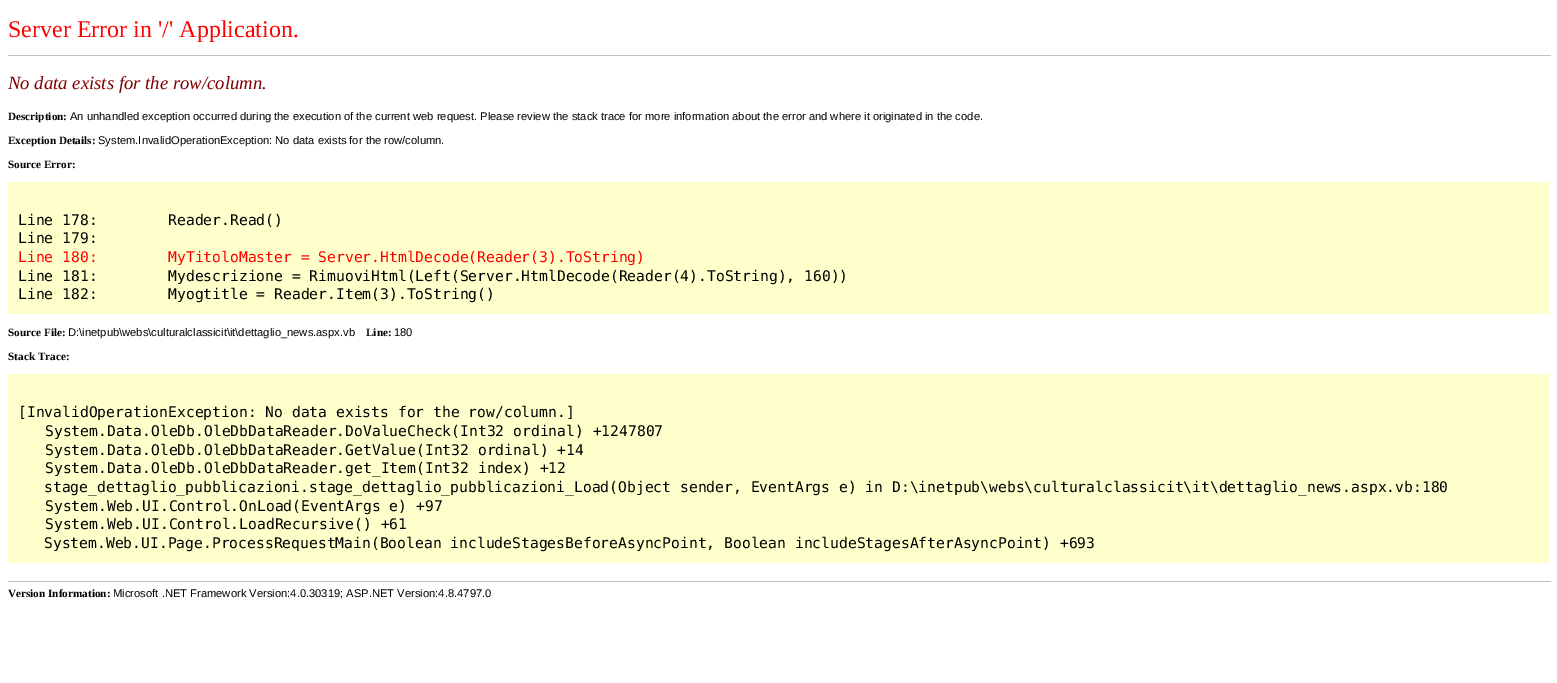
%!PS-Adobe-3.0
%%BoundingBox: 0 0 1557 683
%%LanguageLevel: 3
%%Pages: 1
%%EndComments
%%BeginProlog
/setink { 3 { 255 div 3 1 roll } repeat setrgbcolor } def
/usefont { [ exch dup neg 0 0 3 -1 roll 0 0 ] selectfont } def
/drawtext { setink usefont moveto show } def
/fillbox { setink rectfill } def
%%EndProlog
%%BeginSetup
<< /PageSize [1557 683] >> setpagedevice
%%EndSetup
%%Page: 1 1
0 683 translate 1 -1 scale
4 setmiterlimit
0 0 1557 683 255 255 255 fillbox
(Server Error in '/' Application.) 8 37 /LiberationSerif-Regular 24 255 0 0 drawtext
8 55 1543 1 192 192 192 fillbox
(No data exists for the row/column.) 8 89 /LiberationSerif-Italic 18.7 128 0 0 drawtext
(Description:) 8 120 /LiberationSerif-Bold 11.2 0 0 0 drawtext
(An unhandled exception occurred during the execution of the current web request. Please review the stack trace for more information about the error and where it originated in the code.) 70 120 /LiberationSans-Regular 11.2 0 0 0 drawtext
(Exception Details:) 8 144 /LiberationSerif-Bold 11.2 0 0 0 drawtext
(System.InvalidOperationException: No data exists for the row/column.) 98 144 /LiberationSans-Regular 11.2 0 0 0 drawtext
(Source Error:) 8 168 /LiberationSerif-Bold 11.2 0 0 0 drawtext
8 182 1541 132 255 255 204 fillbox
(Line 178:        Reader.Read\(\)) 18 225 /DejaVuSansMono-Regular 14.67 0 0 0 drawtext
(Line 179:) 18 243 /DejaVuSansMono-Regular 14.67 0 0 0 drawtext
(Line 180:        MyTitoloMaster = Server.HtmlDecode\(Reader\(3\).ToString\)) 18 262 /DejaVuSansMono-Regular 14.67 255 0 0 drawtext
(Line 181:        Mydescrizione = RimuoviHtml\(Left\(Server.HtmlDecode\(Reader\(4\).ToString\), 160\)\)) 18 281 /DejaVuSansMono-Regular 14.67 0 0 0 drawtext
(Line 182:        Myogtitle = Reader.Item\(3\).ToString\(\)) 18 299 /DejaVuSansMono-Regular 14.67 0 0 0 drawtext
(Source File:) 8 336 /LiberationSerif-Bold 11.2 0 0 0 drawtext
(D:\\inetpub\\webs\\culturalclassicit\\it\\dettaglio_news.aspx.vb) 68 336 /LiberationSans-Regular 11.2 0 0 0 drawtext
(Line:) 366 336 /LiberationSerif-Bold 11.2 0 0 0 drawtext
(180) 394 336 /LiberationSans-Regular 11.2 0 0 0 drawtext
(Stack Trace:) 8 360 /LiberationSerif-Bold 11.2 0 0 0 drawtext
8 374 1541 189 255 255 204 fillbox
([InvalidOperationException: No data exists for the row/column.]) 18 417 /DejaVuSansMono-Regular 14.67 0 0 0 drawtext
(System.Data.OleDb.OleDbDataReader.DoValueCheck\(Int32 ordinal\) +1247807) 45 436 /DejaVuSansMono-Regular 14.67 0 0 0 drawtext
(System.Data.OleDb.OleDbDataReader.GetValue\(Int32 ordinal\) +14) 45 455 /DejaVuSansMono-Regular 14.67 0 0 0 drawtext
(System.Data.OleDb.OleDbDataReader.get_Item\(Int32 index\) +12) 45 473 /DejaVuSansMono-Regular 14.67 0 0 0 drawtext
(stage_dettaglio_pubblicazioni.stage_dettaglio_pubblicazioni_Load\(Object sender, EventArgs e\) in D:\\inetpub\\webs\\culturalclassicit\\it\\dettaglio_news.aspx.vb:180) 44 492 /DejaVuSansMono-Regular 14.67 0 0 0 drawtext
(System.Web.UI.Control.OnLoad\(EventArgs e\) +97) 45 511 /DejaVuSansMono-Regular 14.67 0 0 0 drawtext
(System.Web.UI.Control.LoadRecursive\(\) +61) 45 529 /DejaVuSansMono-Regular 14.67 0 0 0 drawtext
(System.Web.UI.Page.ProcessRequestMain\(Boolean includeStagesBeforeAsyncPoint, Boolean includeStagesAfterAsyncPoint\) +693) 44 548 /DejaVuSansMono-Regular 14.67 0 0 0 drawtext
8 581 1543 1 192 192 192 fillbox
(Version Information:) 8 597 /LiberationSerif-Bold 11.2 0 0 0 drawtext
(Microsoft .NET Framework Version:4.0.30319; ASP.NET Version:4.8.4797.0) 113 597 /LiberationSans-Regular 11.2 0 0 0 drawtext
showpage
%%EOF
